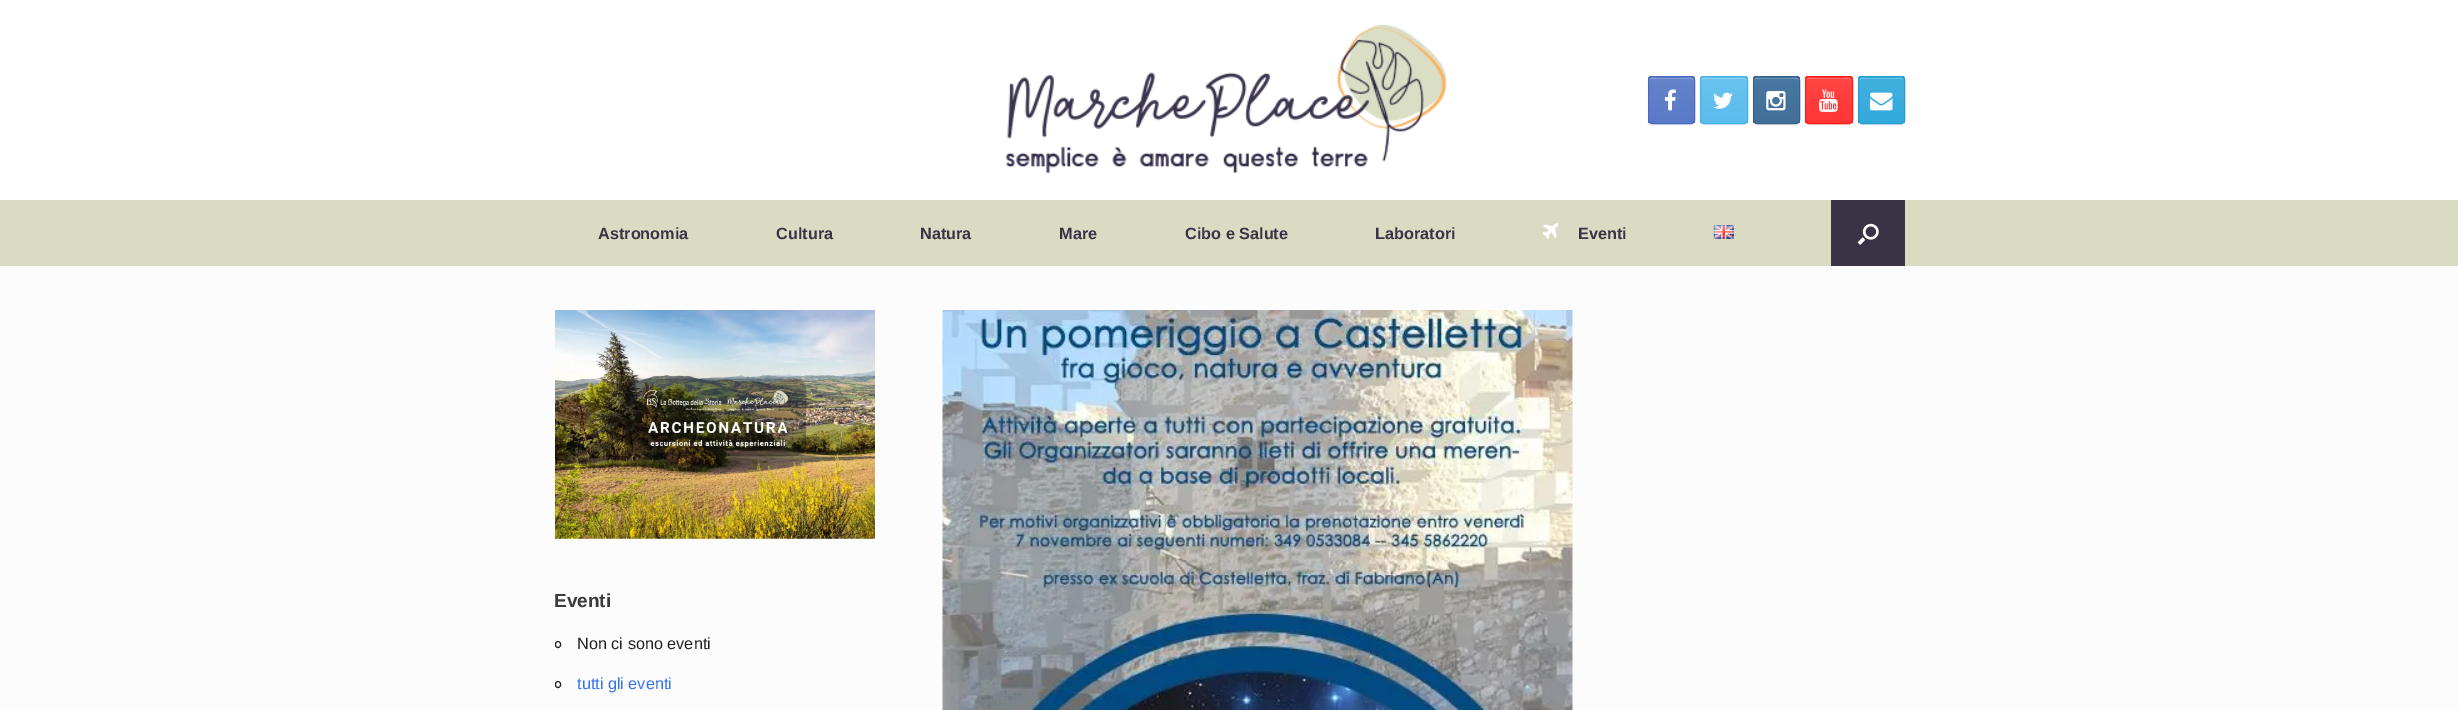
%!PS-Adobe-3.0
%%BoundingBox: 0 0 2458 710
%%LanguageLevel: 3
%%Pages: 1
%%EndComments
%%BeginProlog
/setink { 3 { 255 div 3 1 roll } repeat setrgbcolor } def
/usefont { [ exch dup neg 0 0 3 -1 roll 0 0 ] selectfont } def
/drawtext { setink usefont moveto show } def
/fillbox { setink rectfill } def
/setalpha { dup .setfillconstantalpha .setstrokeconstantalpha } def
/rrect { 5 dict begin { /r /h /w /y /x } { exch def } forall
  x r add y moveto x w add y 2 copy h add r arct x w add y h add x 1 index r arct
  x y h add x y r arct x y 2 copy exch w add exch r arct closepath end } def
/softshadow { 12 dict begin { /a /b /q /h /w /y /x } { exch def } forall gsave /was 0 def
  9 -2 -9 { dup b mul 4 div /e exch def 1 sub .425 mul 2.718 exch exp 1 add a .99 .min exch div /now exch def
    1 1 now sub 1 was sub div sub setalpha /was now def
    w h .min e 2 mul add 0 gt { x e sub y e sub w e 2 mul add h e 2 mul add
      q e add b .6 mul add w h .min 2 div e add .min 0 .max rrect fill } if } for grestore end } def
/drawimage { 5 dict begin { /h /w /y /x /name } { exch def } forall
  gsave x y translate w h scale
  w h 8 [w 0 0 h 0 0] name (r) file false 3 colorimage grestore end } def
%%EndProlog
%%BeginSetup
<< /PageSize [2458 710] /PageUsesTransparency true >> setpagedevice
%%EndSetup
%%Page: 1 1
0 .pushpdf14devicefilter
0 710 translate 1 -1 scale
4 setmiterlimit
0 0 2458 710 255 255 255 fillbox
(assets/img1.rgb) 1006 24 441 150 drawimage
0 0 0 setink
1648 78 47 47 4 0.5 0.1 softshadow
gsave
1648 76 47 48 4 rrect clip newpath
gsave 1648 76 moveto 1695 76 lineto 1695 78 lineto 1648 78 lineto closepath clip newpath
<< /ShadingType 2 /ColorSpace /DeviceRGB /Coords [1649 78 1649 33] /Extend [true true] /Function << /FunctionType 2 /Domain [0 1] /C0 [0.349 0.478 0.78] /C1 [0.392 0.514 0.796] /N 1 >> >> shfill grestore
gsave 1648 78 moveto 1695 78 lineto 1695 123 lineto 1648 123 lineto closepath clip newpath
<< /ShadingType 2 /ColorSpace /DeviceRGB /Coords [1649 123 1649 78] /Extend [true true] /Function << /FunctionType 2 /Domain [0 1] /C0 [0.349 0.478 0.78] /C1 [0.392 0.514 0.796] /N 1 >> >> shfill grestore
grestore
131 156 213 setink
1651 79 moveto 1691 79 lineto 1693 79 1694 80 1694 81 curveto 1694 76 1688 78 1685 78 curveto 1658 78 lineto 1655 78 1649 76 1649 81 curveto 1649 80 1650 79 1651 79 curveto closepath fill
70 107 193 setink
1648.5 76.5 46 47 3.5 rrect stroke
(assets/img2.rgb) 1664 89 12 22 drawimage
0 0 0 setink
1700 78 48 47 4 0.5 0.1 softshadow
gsave
1700 76 48 48 4 rrect clip newpath
gsave 1700 76 moveto 1748 76 lineto 1748 78 lineto 1700 78 lineto closepath clip newpath
<< /ShadingType 2 /ColorSpace /DeviceRGB /Coords [1701 78 1701 33] /Extend [true true] /Function << /FunctionType 2 /Domain [0 1] /C0 [0.357 0.737 0.925] /C1 [0.412 0.761 0.933] /N 1 >> >> shfill grestore
gsave 1700 78 moveto 1748 78 lineto 1748 123 lineto 1700 123 lineto closepath clip newpath
<< /ShadingType 2 /ColorSpace /DeviceRGB /Coords [1701 123 1701 78] /Extend [true true] /Function << /FunctionType 2 /Domain [0 1] /C0 [0.357 0.737 0.925] /C1 [0.412 0.761 0.933] /N 1 >> >> shfill grestore
grestore
143 209 242 setink
1704 79 moveto 1744 79 lineto 1745 79 1746 80 1746 81 curveto 1746 76 1740 78 1737 78 curveto 1710 78 lineto 1707 78 1701 76 1701 81 curveto 1701 80 1702 79 1704 79 curveto closepath fill
68 179 233 setink
1700.5 76.5 47 47 3.5 rrect stroke
(assets/img3.rgb) 1713 92 20 17 drawimage
0 0 0 setink
1753 78 47 47 4 0.5 0.1 softshadow
gsave
1753 76 47 48 4 rrect clip newpath
gsave 1753 76 moveto 1800 76 lineto 1800 78 lineto 1753 78 lineto closepath clip newpath
<< /ShadingType 2 /ColorSpace /DeviceRGB /Coords [1754 78 1754 33] /Extend [true true] /Function << /FunctionType 2 /Domain [0 1] /C0 [0.259 0.435 0.596] /C1 [0.278 0.467 0.639] /N 1 >> >> shfill grestore
gsave 1753 78 moveto 1800 78 lineto 1800 123 lineto 1753 123 lineto closepath clip newpath
<< /ShadingType 2 /ColorSpace /DeviceRGB /Coords [1754 123 1754 78] /Extend [true true] /Function << /FunctionType 2 /Domain [0 1] /C0 [0.259 0.435 0.596] /C1 [0.278 0.467 0.639] /N 1 >> >> shfill grestore
grestore
108 146 181 setink
1756 79 moveto 1796 79 lineto 1798 79 1799 80 1799 81 curveto 1799 76 1793 78 1790 78 curveto 1763 78 lineto 1760 78 1754 76 1754 81 curveto 1754 80 1755 79 1756 79 curveto closepath fill
58 98 134 setink
1753.5 76.5 46 47 3.5 rrect stroke
(assets/img4.rgb) 1766 91 20 20 drawimage
0 0 0 setink
1805 78 48 47 4 0.5 0.1 softshadow
gsave
1805 76 48 48 4 rrect clip newpath
gsave 1805 76 moveto 1853 76 lineto 1853 78 lineto 1805 78 lineto closepath clip newpath
<< /ShadingType 2 /ColorSpace /DeviceRGB /Coords [1806 78 1806 33] /Extend [true true] /Function << /FunctionType 2 /Domain [0 1] /C0 [1 0.212 0.208] /C1 [1 0.271 0.267] /N 1 >> >> shfill grestore
gsave 1805 78 moveto 1853 78 lineto 1853 123 lineto 1805 123 lineto closepath clip newpath
<< /ShadingType 2 /ColorSpace /DeviceRGB /Coords [1806 123 1806 78] /Extend [true true] /Function << /FunctionType 2 /Domain [0 1] /C0 [1 0.212 0.208] /C1 [1 0.271 0.267] /N 1 >> >> shfill grestore
grestore
255 106 105 setink
1809 79 moveto 1849 79 lineto 1850 79 1851 80 1851 81 curveto 1851 76 1845 78 1842 78 curveto 1815 78 lineto 1812 78 1806 76 1806 81 curveto 1806 80 1807 79 1809 79 curveto closepath fill
255 29 27 setink
1805.5 76.5 47 47 3.5 rrect stroke
(assets/img5.rgb) 1819 89 19 23 drawimage
0 0 0 setink
1858 78 47 47 4 0.5 0.1 softshadow
gsave
1858 76 47 48 4 rrect clip newpath
gsave 1858 76 moveto 1905 76 lineto 1905 78 lineto 1858 78 lineto closepath clip newpath
<< /ShadingType 2 /ColorSpace /DeviceRGB /Coords [1859 78 1859 33] /Extend [true true] /Function << /FunctionType 2 /Domain [0 1] /C0 [0.204 0.667 0.863] /C1 [0.255 0.686 0.871] /N 1 >> >> shfill grestore
gsave 1858 78 moveto 1905 78 lineto 1905 123 lineto 1858 123 lineto closepath clip newpath
<< /ShadingType 2 /ColorSpace /DeviceRGB /Coords [1859 123 1859 78] /Extend [true true] /Function << /FunctionType 2 /Domain [0 1] /C0 [0.204 0.667 0.863] /C1 [0.255 0.686 0.871] /N 1 >> >> shfill grestore
grestore
103 191 229 setink
1861 79 moveto 1901 79 lineto 1903 79 1904 80 1904 81 curveto 1904 76 1898 78 1895 78 curveto 1868 78 lineto 1865 78 1859 76 1859 81 curveto 1859 80 1860 79 1861 79 curveto closepath fill
36 158 210 setink
1858.5 76.5 46 47 3.5 rrect stroke
(assets/img6.rgb) 1870 92 23 19 drawimage
0 200 2458 66 217 219 195 fillbox
(Astronomia) 598 239 /LiberationSans-Bold 16.25 57 51 69 drawtext
(Cultura) 776 239 /LiberationSans-Bold 16.25 57 51 69 drawtext
(Natura) 920 239 /LiberationSans-Bold 16.25 57 51 69 drawtext
(Mare) 1059 239 /LiberationSans-Bold 16.25 57 51 69 drawtext
(Cibo e Salute) 1185 239 /LiberationSans-Bold 16.25 57 51 69 drawtext
(Laboratori) 1375 239 /LiberationSans-Bold 16.25 57 51 69 drawtext
(assets/img7.rgb) 1542 223 17 16 drawimage
(Eventi) 1578 239 /LiberationSans-Bold 16.25 57 51 69 drawtext
(assets/img8.rgb) 1713 225 21 14 drawimage
1831 200 74 66 57 51 69 fillbox
(assets/img9.rgb) 1857 223 22 22 drawimage
0 266 2458 444 252 252 252 fillbox
(assets/img10.rgb) 555 310 320 229 drawimage
(Eventi) 554 607 /LiberationSans-Bold 19 59 59 59 drawtext
33 33 33 setink
555.5 641.5 5 6 2.5 rrect stroke
(Non ci sono eventi) 577 649 /LiberationSans-Regular 16.25 33 33 33 drawtext
555.5 681.5 5 6 2.5 rrect stroke
(tutti gli eventi) 577 689 /LiberationSans-Regular 16.25 51 114 240 drawtext
(assets/img11.rgb) 942 310 631 400 drawimage
.poppdf14devicefilter showpage
%%EOF
